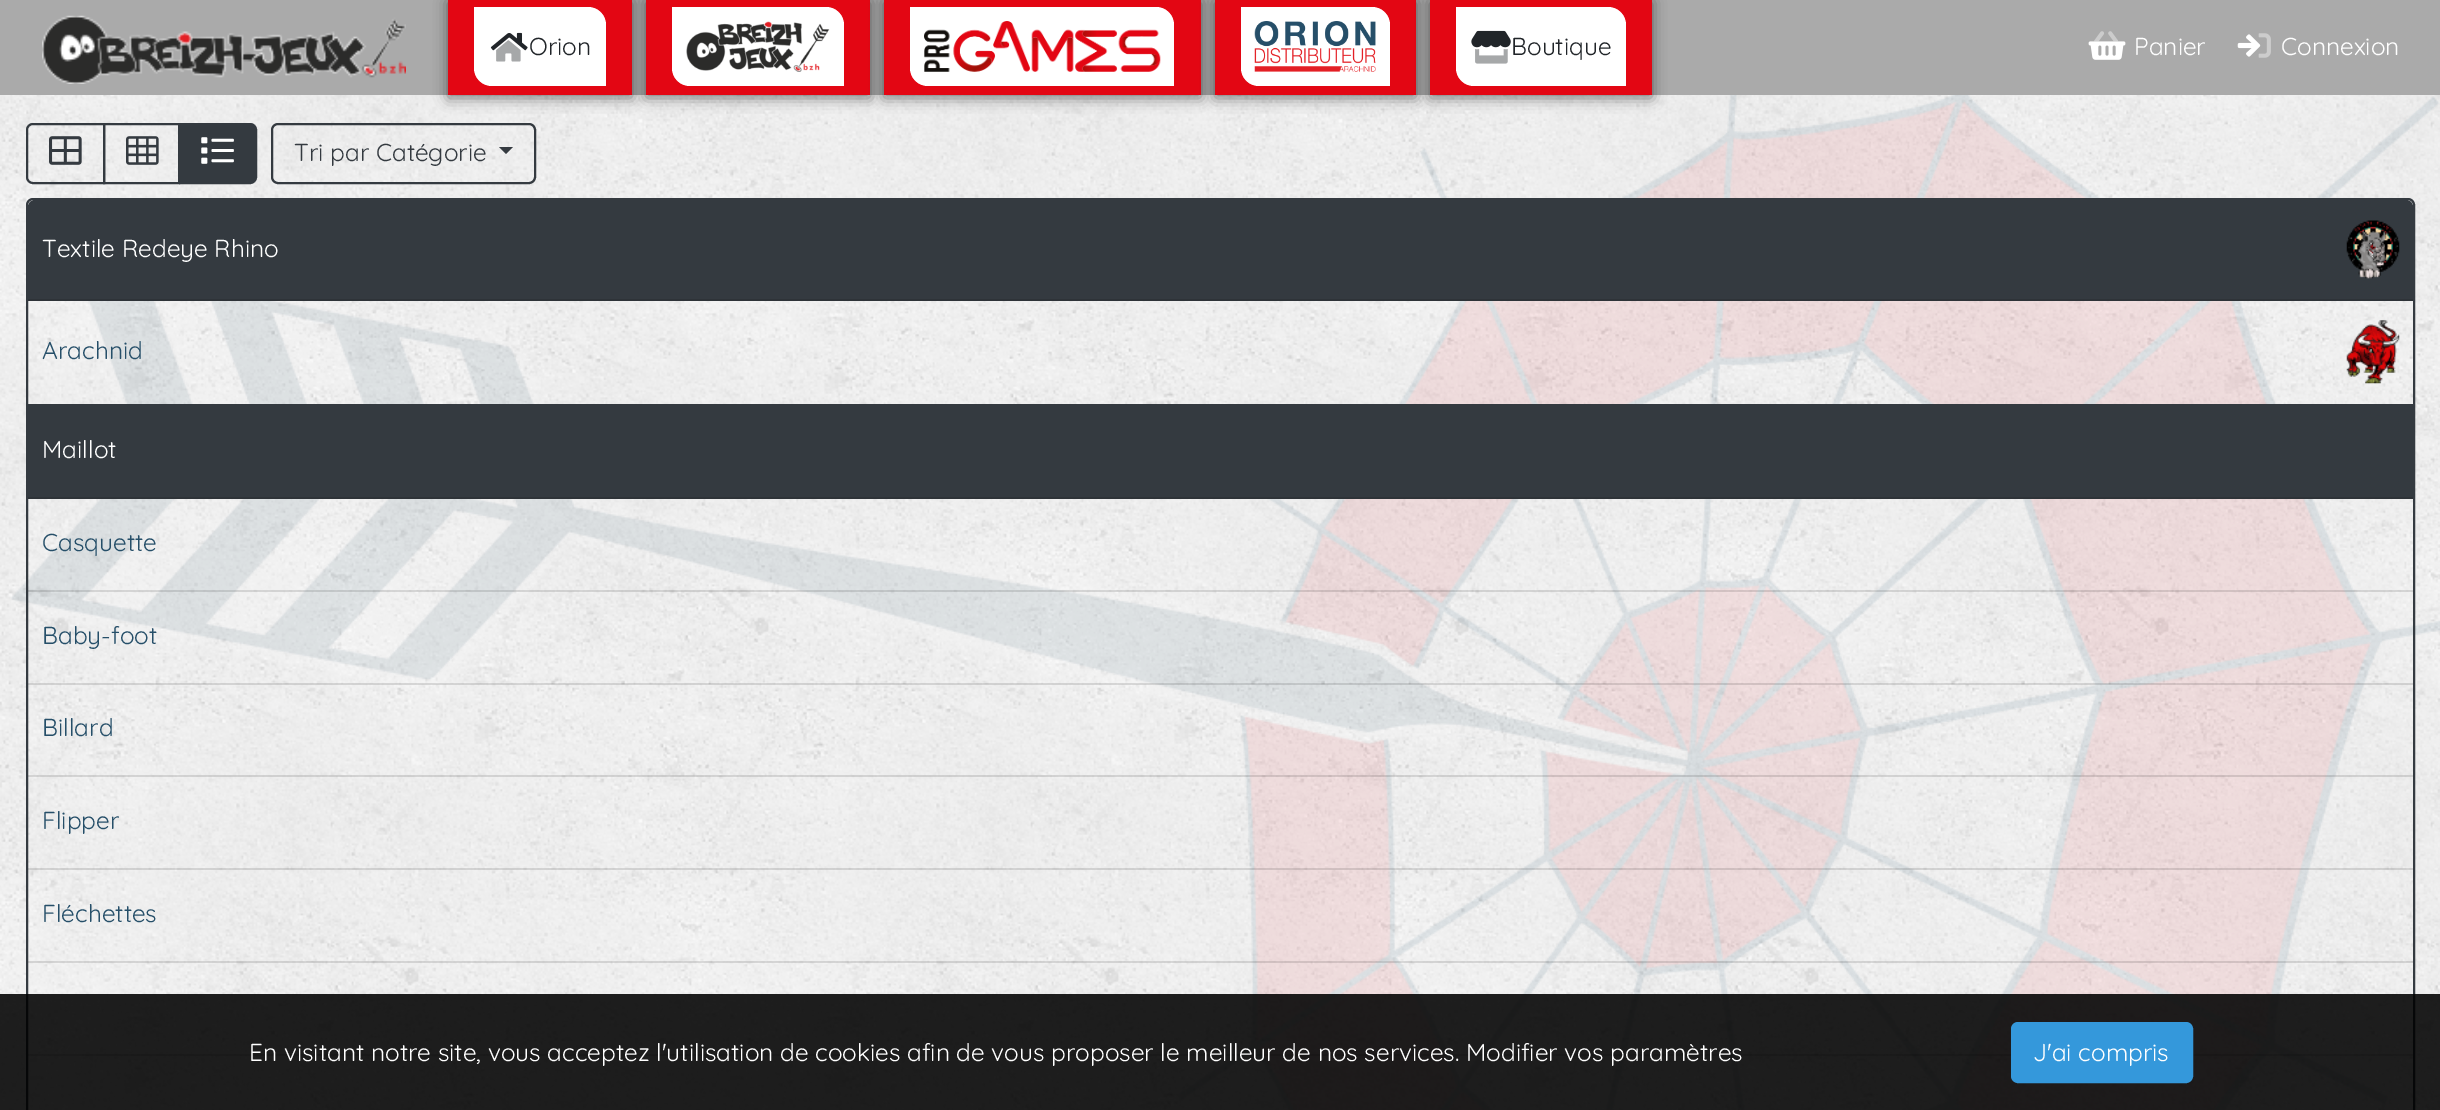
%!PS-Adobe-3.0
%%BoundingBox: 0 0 2440 1110
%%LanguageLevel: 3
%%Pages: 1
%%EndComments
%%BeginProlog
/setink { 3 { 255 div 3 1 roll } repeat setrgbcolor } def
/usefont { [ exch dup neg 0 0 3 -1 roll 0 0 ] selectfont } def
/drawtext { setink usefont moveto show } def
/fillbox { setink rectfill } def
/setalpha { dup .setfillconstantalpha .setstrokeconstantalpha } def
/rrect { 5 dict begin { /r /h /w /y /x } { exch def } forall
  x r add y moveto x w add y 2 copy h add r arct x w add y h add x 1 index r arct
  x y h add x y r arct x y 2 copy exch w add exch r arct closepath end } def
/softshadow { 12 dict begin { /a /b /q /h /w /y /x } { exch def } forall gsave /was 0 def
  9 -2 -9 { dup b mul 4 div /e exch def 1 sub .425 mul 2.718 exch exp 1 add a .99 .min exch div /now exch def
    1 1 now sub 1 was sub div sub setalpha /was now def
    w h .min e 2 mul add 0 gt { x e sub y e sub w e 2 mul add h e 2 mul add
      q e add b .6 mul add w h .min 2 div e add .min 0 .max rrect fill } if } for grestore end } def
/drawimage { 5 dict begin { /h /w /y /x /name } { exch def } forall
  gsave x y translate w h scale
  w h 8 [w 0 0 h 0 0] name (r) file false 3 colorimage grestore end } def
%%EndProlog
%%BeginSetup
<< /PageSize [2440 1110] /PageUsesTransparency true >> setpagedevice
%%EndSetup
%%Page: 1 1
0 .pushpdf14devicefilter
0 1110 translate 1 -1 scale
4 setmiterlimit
0 0 2440 1110 255 255 255 fillbox
(assets/img1.rgb) 0 95 2440 1015 drawimage
0 0 2440 95 170 170 170 fillbox
(assets/img2.rgb) 42 15 364 69 drawimage
(assets/img14.rgb) 11 95 2429 1015 drawimage
0 0 0 setink
448 2 184 96 0 7 0.5 softshadow
448 0 184 95 227 6 19 fillbox
255 255 255 setink
474 7 moveto 588 7 lineto 598 7 606 15 606 25 curveto 606 86 lineto 492 86 lineto 482 86 474 78 474 68 curveto closepath fill
(assets/img3.rgb) 490 32 38 19 drawimage
(assets/img4.rgb) 496 40 25 22 drawimage
(Orion) 529 55 /Quicksand-Regular 24.5 33 37 41 drawtext
0 0 0 setink
646 2 224 96 0 7 0.5 softshadow
646 0 224 95 227 6 19 fillbox
255 255 255 setink
672 7 moveto 826 7 lineto 836 7 844 15 844 25 curveto 844 86 lineto 690 86 lineto 680 86 672 78 672 68 curveto closepath fill
(assets/img5.rgb) 686 21 144 51 drawimage
0 0 0 setink
884 2 317 96 0 7 0.5 softshadow
884 0 317 95 227 6 19 fillbox
255 255 255 setink
910 7 moveto 1156 7 lineto 1166 7 1174 15 1174 25 curveto 1174 86 lineto 928 86 lineto 918 86 910 78 910 68 curveto closepath fill
(assets/img6.rgb) 924 21 237 51 drawimage
0 0 0 setink
1215 2 201 96 0 7 0.5 softshadow
1215 0 201 95 227 6 19 fillbox
255 255 255 setink
1241 7 moveto 1372 7 lineto 1382 7 1390 15 1390 25 curveto 1390 86 lineto 1259 86 lineto 1249 86 1241 78 1241 68 curveto closepath fill
(assets/img7.rgb) 1254 21 122 51 drawimage
0 0 0 setink
1430 2 222 96 0 7 0.5 softshadow
1430 0 222 95 227 6 19 fillbox
255 255 255 setink
1456 7 moveto 1608 7 lineto 1618 7 1626 15 1626 25 curveto 1626 86 lineto 1474 86 lineto 1464 86 1456 78 1456 68 curveto closepath fill
(assets/img8.rgb) 1471 30 40 18 drawimage
(assets/img9.rgb) 1475 49 33 15 drawimage
(Boutique) 1511 55 /Quicksand-Regular 24.5 33 37 41 drawtext
(assets/img11.rgb) 2088 41 38 19 drawimage
(assets/img10.rgb) 2094 31 24 11 drawimage
(Panier) 2134 55 /Quicksand-Regular 24.5 255 255 255 drawtext
(assets/img12.rgb) 2237 34 24 23 drawimage
(assets/img13.rgb) 2258 33 13 25 drawimage
(Connexion) 2281 55 /Quicksand-Regular 24.5 255 255 255 drawtext
52 58 64 setink
2 setlinewidth
33 124 moveto 104 124 lineto 104 183 lineto 33 183 lineto 29.5 183 27 180.5 27 177 curveto 27 130 lineto 27 126.5 29.5 124 33 124 curveto closepath stroke
(assets/img15.rgb) 49 136 33 29 drawimage
104 124 75 59 rectstroke
(assets/img16.rgb) 126 136 33 29 drawimage
180 124 moveto 250 124 lineto 253.5 124 256 126.5 256 130 curveto 256 177 lineto 256 180.5 253.5 183 250 183 curveto 180 183 lineto closepath gsave fill grestore
stroke
(assets/img17.rgb) 201 137 33 27 drawimage
272 124 263 59 6 rrect stroke
(Tri par Catégorie) 294 161 /Quicksand-Regular 24.5 52 58 64 drawtext
499 147 moveto 513 147 lineto 506 154 lineto closepath fill
27 199 2387 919 6 rrect stroke
35 200 moveto 2406 200 lineto 2410 200 2413 203 2413 207 curveto 2413 301 lineto 28 301 lineto 28 207 lineto 28 203 31 200 35 200 curveto closepath fill
28 299 2385 2 46 51 56 fillbox
(Textile Redeye Rhino) 42 257 /Quicksand-Regular 24.5 255 255 255 drawtext
(assets/img18.rgb) 2346 220 54 59 drawimage
(Arachnid) 42 359 /Quicksand-Regular 24.5 38 79 105 drawtext
(assets/img19.rgb) 2346 320 54 64 drawimage
28 404 2385 93 52 58 64 fillbox
28 497 2385 2 46 51 56 fillbox
(Maillot) 42 458 /Quicksand-Regular 24.5 255 255 255 drawtext
0.12 setalpha
28 590 2385 2 0 0 0 fillbox
1 setalpha
(Casquette) 42 551 /Quicksand-Regular 24.5 38 79 105 drawtext
0.12 setalpha
28 683 2385 2 0 0 0 fillbox
1 setalpha
(Baby-foot) 42 644 /Quicksand-Regular 24.5 38 79 105 drawtext
0.12 setalpha
28 775 2385 2 0 0 0 fillbox
1 setalpha
(Billard) 42 736 /Quicksand-Regular 24.5 38 79 105 drawtext
0.12 setalpha
28 868 2385 2 0 0 0 fillbox
1 setalpha
(Flipper) 42 829 /Quicksand-Regular 24.5 38 79 105 drawtext
0.12 setalpha
28 961 2385 2 0 0 0 fillbox
1 setalpha
(Fléchettes) 42 922 /Quicksand-Regular 24.5 38 79 105 drawtext
0.12 setalpha
28 1054 2385 2 0 0 0 fillbox
0.88 setalpha
0 994 2440 116 0 0 0 fillbox
1 setalpha
(En visitant notre site, vous acceptez l'utilisation de cookies afin de vous proposer le meilleur de nos services. Modifier vos paramètres) 249 1061 /Quicksand-Regular 24.5 255 255 255 drawtext
52 152 219 setink
2012 1023 180 59 6 rrect gsave fill grestore
stroke
(J'ai compris) 2033 1061 /Quicksand-Regular 24.5 255 255 255 drawtext
.poppdf14devicefilter showpage
%%EOF
